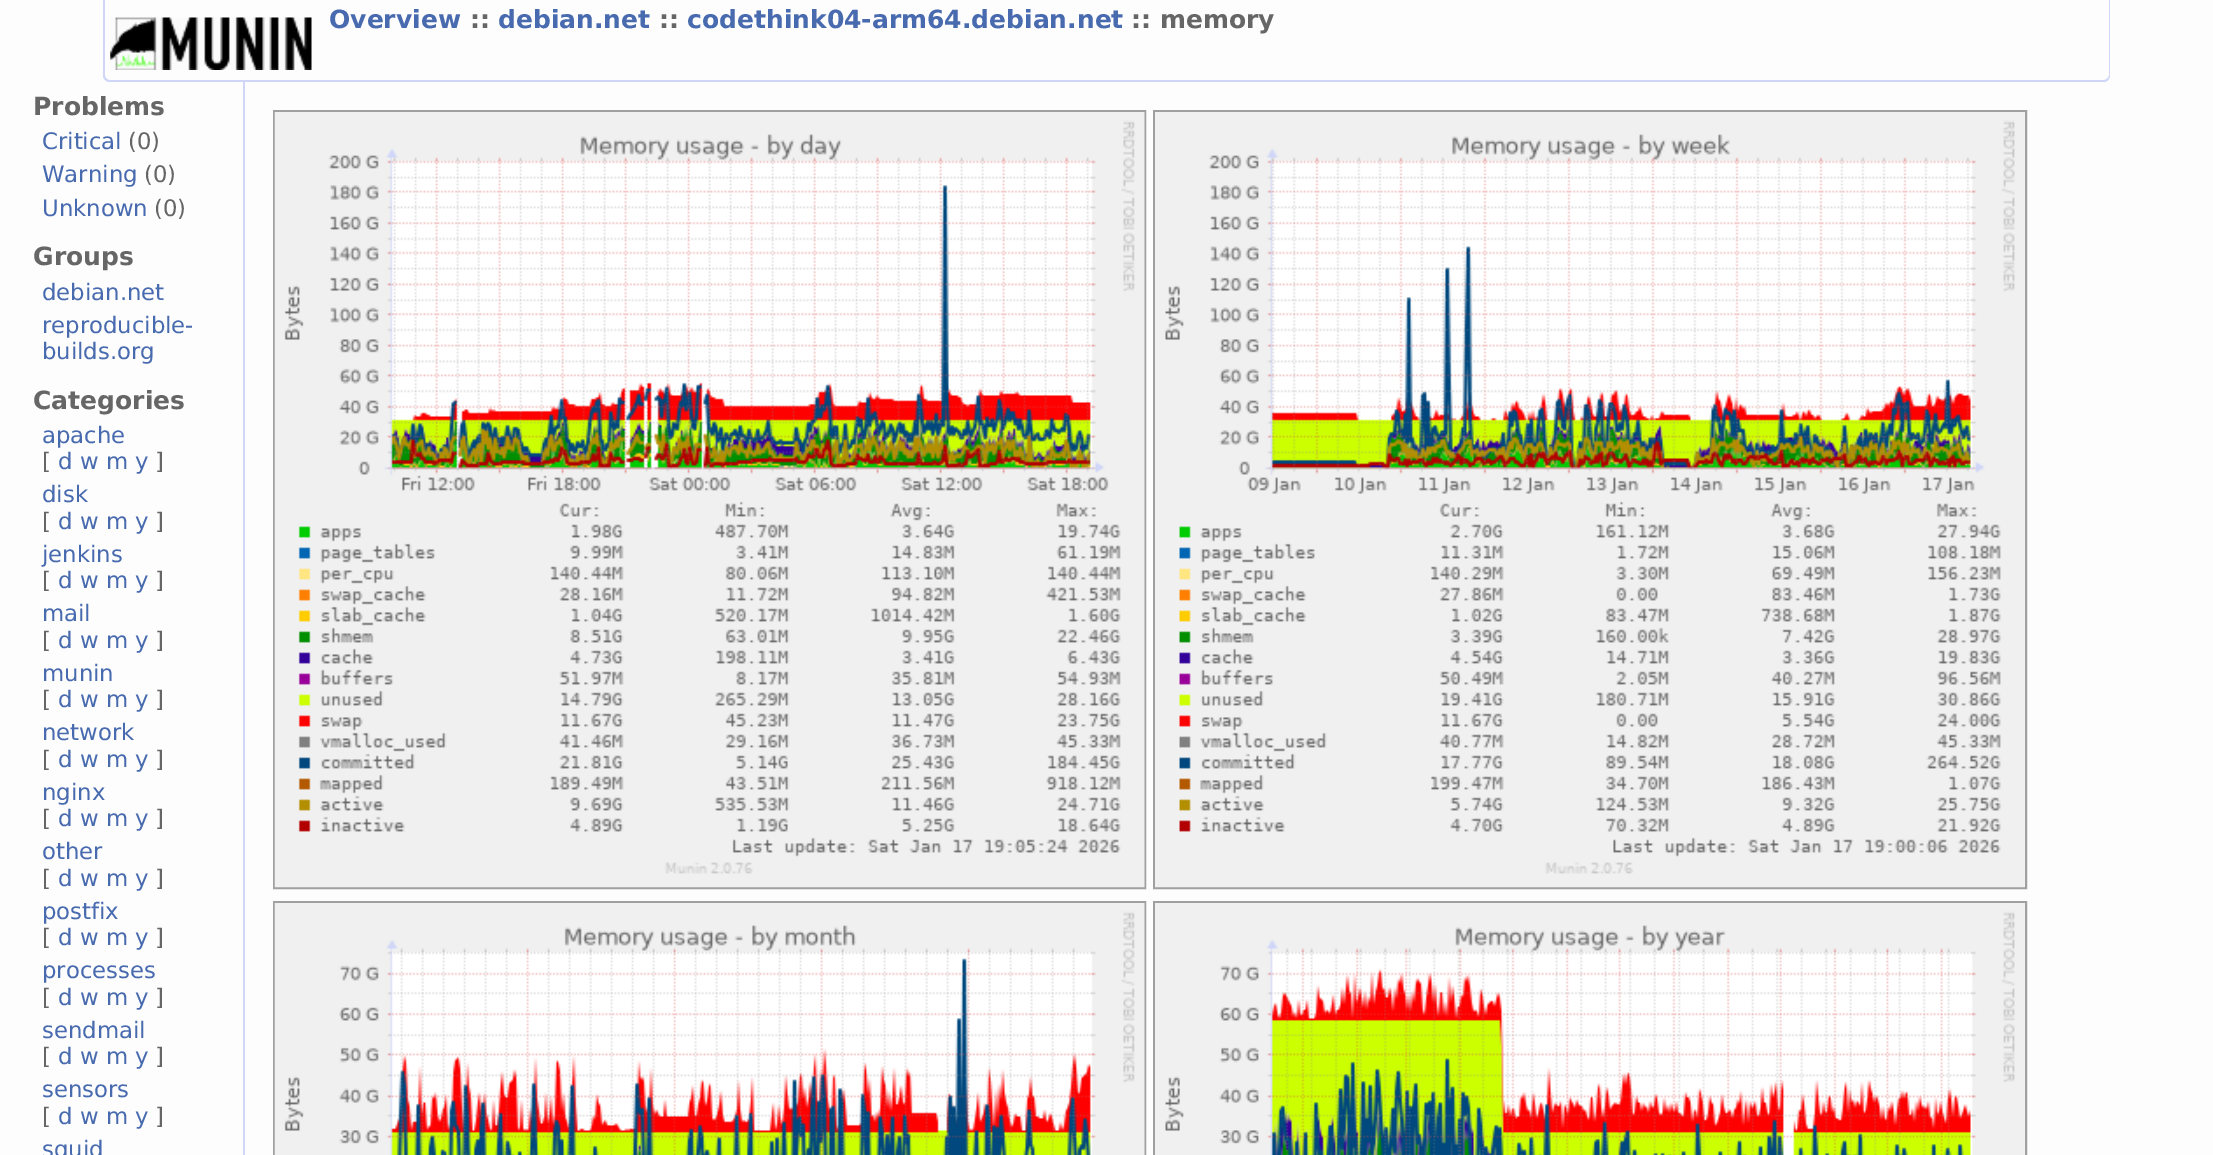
%!PS-Adobe-3.0
%%BoundingBox: 0 0 2213 1155
%%LanguageLevel: 3
%%Pages: 1
%%EndComments
%%BeginProlog
/setink { 3 { 255 div 3 1 roll } repeat setrgbcolor } def
/usefont { [ exch dup neg 0 0 3 -1 roll 0 0 ] selectfont } def
/drawtext { setink usefont moveto show } def
/fillbox { setink rectfill } def
/drawimage { 5 dict begin { /h /w /y /x /name } { exch def } forall
  gsave x y translate w h scale
  w h 8 [w 0 0 h 0 0] name (r) file false 3 colorimage grestore end } def
%%EndProlog
%%BeginSetup
<< /PageSize [2213 1155] >> setpagedevice
%%EndSetup
%%Page: 1 1
0 1155 translate 1 -1 scale
4 setmiterlimit
0 0 2213 1155 253 253 253 fillbox
207 214 248 setink
103 0 moveto 2110 0 lineto 2110 75 lineto 2110 79 2107 82 2104 82 curveto 110 82 lineto 106 82 103 79 103 75 curveto closepath 105 0 moveto 2109 0 lineto 2109 75 lineto 2109 78 2106 80 2104 80 curveto 110 80 lineto 107 80 105 78 105 75 curveto closepath eofill
(assets/img1.rgb) 110 17 202 53 drawimage
(Overview) 329 28 /DejaVuSans-Bold 25 72 106 175 drawtext
(::) 470 28 /DejaVuSans-Bold 25 102 102 102 drawtext
(debian.net) 498 28 /DejaVuSans-Bold 25 72 106 175 drawtext
(::) 659 28 /DejaVuSans-Bold 25 102 102 102 drawtext
(codethink04-arm64.debian.net) 687 28 /DejaVuSans-Bold 25 72 106 175 drawtext
(:: memory) 1131 28 /DejaVuSans-Bold 25 102 102 102 drawtext
(Problems) 33 115 /DejaVuSans-Bold 25 102 102 102 drawtext
(Critical) 42 149 /DejaVuSans-Regular 22.75 72 106 175 drawtext
(\(0\)) 128 149 /DejaVuSans-Regular 22.75 102 102 102 drawtext
(Warning) 42 182 /DejaVuSans-Regular 22.75 72 106 175 drawtext
(\(0\)) 144 182 /DejaVuSans-Regular 22.75 102 102 102 drawtext
(Unknown) 42 216 /DejaVuSans-Regular 22.75 72 106 175 drawtext
(\(0\)) 154 216 /DejaVuSans-Regular 22.75 102 102 102 drawtext
(Groups) 33 265 /DejaVuSans-Bold 25 102 102 102 drawtext
(debian.net) 42 300 /DejaVuSans-Regular 22.75 72 106 175 drawtext
(reproducible-) 42 333 /DejaVuSans-Regular 22.75 72 106 175 drawtext
(builds.org) 42 359 /DejaVuSans-Regular 22.75 72 106 175 drawtext
(Categories) 33 409 /DejaVuSans-Bold 25 102 102 102 drawtext
(apache) 42 443 /DejaVuSans-Regular 22.75 72 106 175 drawtext
([) 42 469 /DejaVuSans-Regular 22.75 102 102 102 drawtext
(d w m y) 58 469 /DejaVuSans-Regular 22.75 72 106 175 drawtext
(]) 155 469 /DejaVuSans-Regular 22.75 102 102 102 drawtext
(disk) 42 502 /DejaVuSans-Regular 22.75 72 106 175 drawtext
([) 42 529 /DejaVuSans-Regular 22.75 102 102 102 drawtext
(d w m y) 58 529 /DejaVuSans-Regular 22.75 72 106 175 drawtext
(]) 155 529 /DejaVuSans-Regular 22.75 102 102 102 drawtext
(jenkins) 42 562 /DejaVuSans-Regular 22.75 72 106 175 drawtext
([) 42 588 /DejaVuSans-Regular 22.75 102 102 102 drawtext
(d w m y) 58 588 /DejaVuSans-Regular 22.75 72 106 175 drawtext
(]) 155 588 /DejaVuSans-Regular 22.75 102 102 102 drawtext
(mail) 42 621 /DejaVuSans-Regular 22.75 72 106 175 drawtext
([) 42 648 /DejaVuSans-Regular 22.75 102 102 102 drawtext
(d w m y) 58 648 /DejaVuSans-Regular 22.75 72 106 175 drawtext
(]) 155 648 /DejaVuSans-Regular 22.75 102 102 102 drawtext
(munin) 42 681 /DejaVuSans-Regular 22.75 72 106 175 drawtext
([) 42 707 /DejaVuSans-Regular 22.75 102 102 102 drawtext
(d w m y) 58 707 /DejaVuSans-Regular 22.75 72 106 175 drawtext
(]) 155 707 /DejaVuSans-Regular 22.75 102 102 102 drawtext
(network) 42 740 /DejaVuSans-Regular 22.75 72 106 175 drawtext
([) 42 767 /DejaVuSans-Regular 22.75 102 102 102 drawtext
(d w m y) 58 767 /DejaVuSans-Regular 22.75 72 106 175 drawtext
(]) 155 767 /DejaVuSans-Regular 22.75 102 102 102 drawtext
(nginx) 42 800 /DejaVuSans-Regular 22.75 72 106 175 drawtext
([) 42 826 /DejaVuSans-Regular 22.75 102 102 102 drawtext
(d w m y) 58 826 /DejaVuSans-Regular 22.75 72 106 175 drawtext
(]) 155 826 /DejaVuSans-Regular 22.75 102 102 102 drawtext
(other) 42 859 /DejaVuSans-Regular 22.75 72 106 175 drawtext
([) 42 886 /DejaVuSans-Regular 22.75 102 102 102 drawtext
(d w m y) 58 886 /DejaVuSans-Regular 22.75 72 106 175 drawtext
(]) 155 886 /DejaVuSans-Regular 22.75 102 102 102 drawtext
(postfix) 42 919 /DejaVuSans-Regular 22.75 72 106 175 drawtext
([) 42 945 /DejaVuSans-Regular 22.75 102 102 102 drawtext
(d w m y) 58 945 /DejaVuSans-Regular 22.75 72 106 175 drawtext
(]) 155 945 /DejaVuSans-Regular 22.75 102 102 102 drawtext
(processes) 42 978 /DejaVuSans-Regular 22.75 72 106 175 drawtext
([) 42 1005 /DejaVuSans-Regular 22.75 102 102 102 drawtext
(d w m y) 58 1005 /DejaVuSans-Regular 22.75 72 106 175 drawtext
(]) 155 1005 /DejaVuSans-Regular 22.75 102 102 102 drawtext
(sendmail) 42 1038 /DejaVuSans-Regular 22.75 72 106 175 drawtext
([) 42 1064 /DejaVuSans-Regular 22.75 102 102 102 drawtext
(d w m y) 58 1064 /DejaVuSans-Regular 22.75 72 106 175 drawtext
(]) 155 1064 /DejaVuSans-Regular 22.75 102 102 102 drawtext
(sensors) 42 1097 /DejaVuSans-Regular 22.75 72 106 175 drawtext
([) 42 1124 /DejaVuSans-Regular 22.75 102 102 102 drawtext
(d w m y) 58 1124 /DejaVuSans-Regular 22.75 72 106 175 drawtext
(]) 155 1124 /DejaVuSans-Regular 22.75 102 102 102 drawtext
(squid) 42 1157 /DejaVuSans-Regular 22.75 72 106 175 drawtext
243 82 2 1073 207 214 248 fillbox
160 160 160 setink
2 setlinewidth
274 111 871 777 rectstroke
(assets/img2.rgb) 274 112 871 776 drawimage
1154 111 872 777 rectstroke
(assets/img3.rgb) 1155 112 870 776 drawimage
274 902 871 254 rectstroke
(assets/img4.rgb) 274 903 871 252 drawimage
1154 902 872 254 rectstroke
(assets/img5.rgb) 1155 903 870 252 drawimage
showpage
%%EOF
